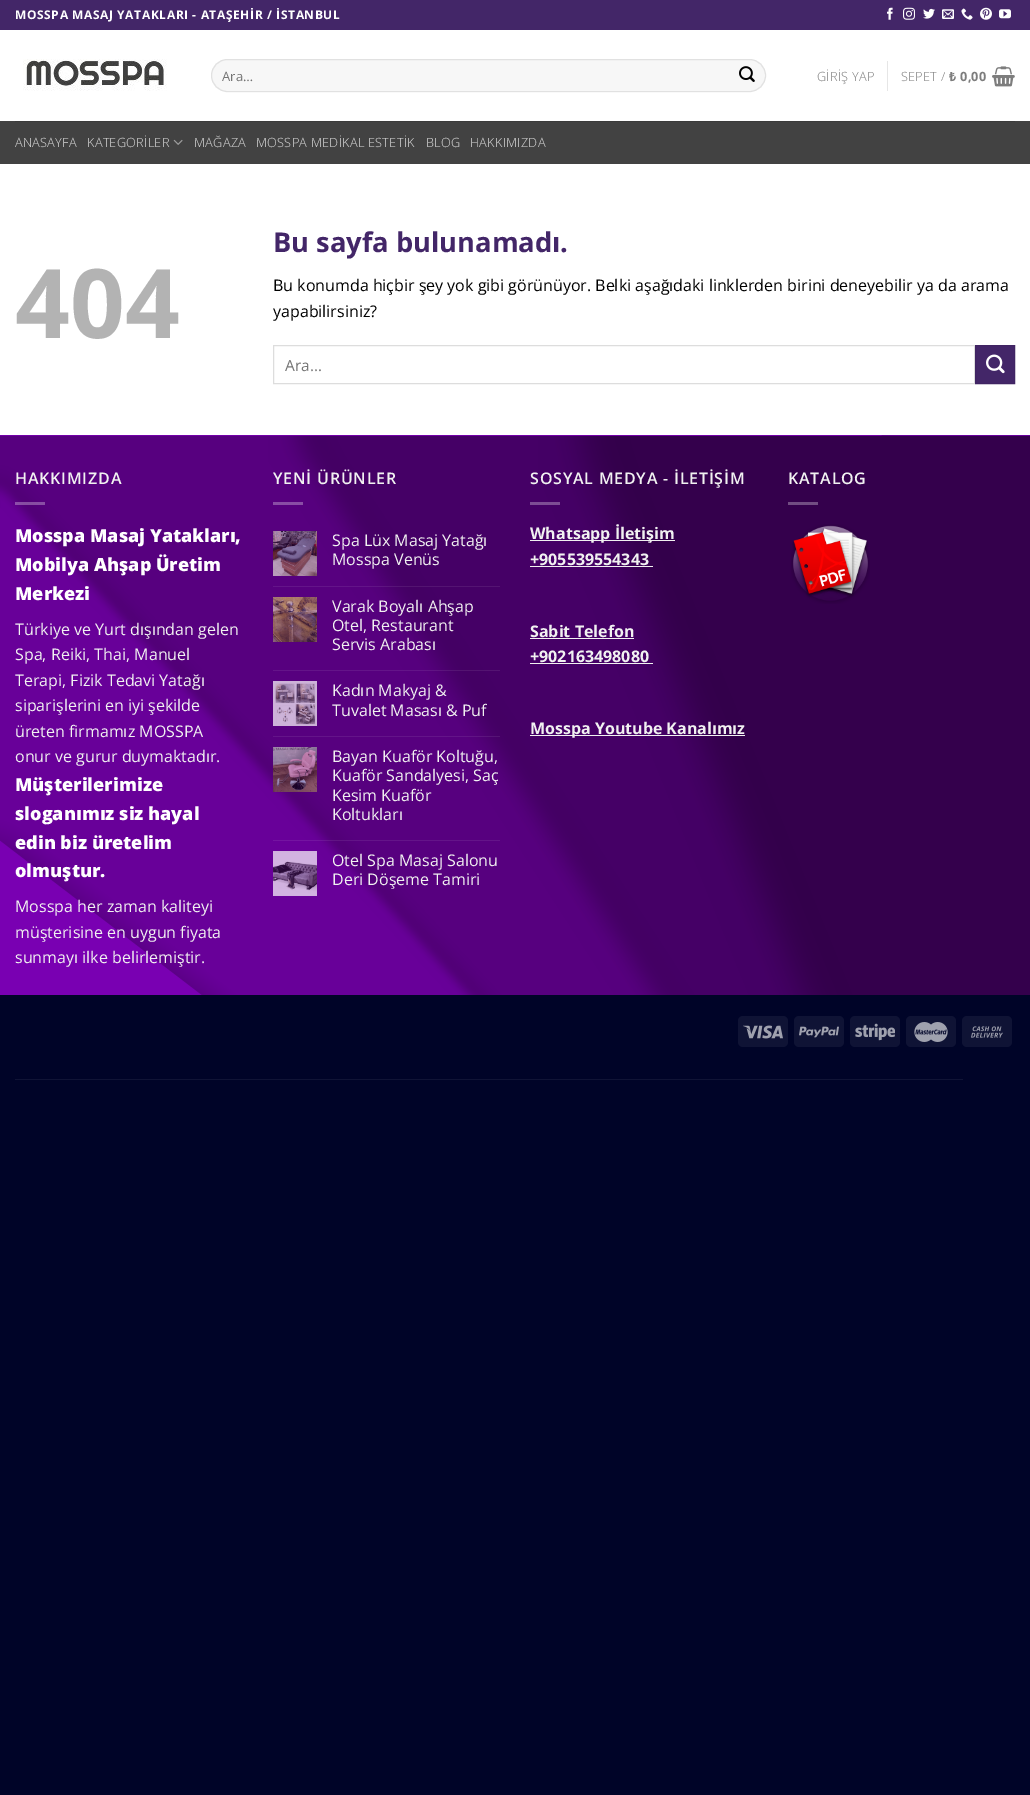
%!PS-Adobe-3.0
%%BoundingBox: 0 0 1030 1795
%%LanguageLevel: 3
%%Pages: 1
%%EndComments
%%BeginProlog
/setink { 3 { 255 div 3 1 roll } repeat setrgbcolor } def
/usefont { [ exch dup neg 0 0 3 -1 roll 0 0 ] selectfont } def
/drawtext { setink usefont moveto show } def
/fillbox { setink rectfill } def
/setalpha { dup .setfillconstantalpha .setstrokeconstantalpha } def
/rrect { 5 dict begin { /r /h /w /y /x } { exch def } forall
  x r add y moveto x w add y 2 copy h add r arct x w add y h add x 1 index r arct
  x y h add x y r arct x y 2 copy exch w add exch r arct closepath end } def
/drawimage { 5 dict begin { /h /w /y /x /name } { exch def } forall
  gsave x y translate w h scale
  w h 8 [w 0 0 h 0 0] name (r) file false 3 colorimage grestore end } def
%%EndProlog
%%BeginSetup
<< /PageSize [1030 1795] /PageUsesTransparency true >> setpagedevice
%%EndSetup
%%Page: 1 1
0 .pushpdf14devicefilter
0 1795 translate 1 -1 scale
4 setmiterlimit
0 0 1030 1795 0 4 40 fillbox
0 30 1030 405 255 255 255 fillbox
0 0 1030 30 67 38 104 fillbox
/OpenSans-Bold 12 usefont
255 255 255 setink
15 19 moveto 0.6 0 (MOSSPA MASAJ YATAKLARI - ATAŞEHİR / İSTANBUL) ashow
(assets/img1.rgb) 887 7 6 13 drawimage
(assets/img2.rgb) 903 7 12 13 drawimage
(assets/img3.rgb) 923 8 12 11 drawimage
(assets/img4.rgb) 942 9 12 10 drawimage
(assets/img5.rgb) 961 8 12 12 drawimage
(assets/img6.rgb) 980 7 12 13 drawimage
(assets/img7.rgb) 999 9 12 10 drawimage
(assets/img8.rgb) 23 59 144 32 drawimage
247 247 247 setink
211 59 555 33 16.5 rrect fill
0.09 setalpha
0 0 0 setink
211.5 59.5 554 32 16 rrect stroke
1 setalpha
(Ara…) 222 81 /OpenSans-Regular 13 117 117 117 drawtext
(assets/img9.rgb) 739 66 16 16 drawimage
/OpenSans-Light 12.75 usefont
125 125 125 setink
817 81 moveto 0.25 0 (GİRİŞ YAP) ashow
887 61 1 30 230 230 230 fillbox
125 125 125 setink
901 81 moveto 0.25 0 (SEPET /) ashow
/NotoSans-Bold 12.75 usefont
949 81 moveto 0.25 0 (₺) ashow
/OpenSans-Bold 12.75 usefont
960 81 moveto 0.25 0 (0,00) ashow
(assets/img10.rgb) 992 66 23 21 drawimage
0 121 1030 43 66 66 66 fillbox
15 121 1000 1 59 59 59 fillbox
/OpenSans-Light 12.75 usefont
217 217 217 setink
15 147 moveto 0.25 0 (ANASAYFA) ashow
87 147 moveto 0.25 0 (KATEGORİLER) ashow
(assets/img11.rgb) 173 139 10 6 drawimage
194 147 moveto 0.25 0 (MAĞAZA) ashow
256 147 moveto 0.25 0 (MOSSPA MEDİKAL ESTETİK) ashow
426 147 moveto 0.25 0 (BLOG) ashow
470 147 moveto 0.25 0 (HAKKIMIZDA) ashow
(404) 15 338 /OpenSans-Bold 96 179 179 179 drawtext
(Bu sayfa bulunamadı.) 273 252 /OpenSans-Bold 27.25 67 38 104 drawtext
(Bu konumda hiçbir şey yok gibi görünüyor. Belki aşağıdaki linklerden birini deneyebilir ya da arama) 273 291 /OpenSans-Regular 16 0 0 0 drawtext
(yapabilirsiniz?) 273 317 /OpenSans-Regular 16 0 0 0 drawtext
221 221 221 setink
273.5 345.5 701 38 rectstroke
(Ara…) 285 371 /OpenSans-Regular 15.5 117 117 117 drawtext
67 38 104 setink
975.5 345.5 moveto 1014.5 345.5 lineto 1014.5 383.5 lineto 975.5 383.5 lineto closepath gsave fill grestore
64 36 99 setink
stroke
(assets/img12.rgb) 986 354 19 20 drawimage
(assets/img13.rgb) 0 435 1030 560 drawimage
0.05 setalpha
0 435 1030 1 0 0 0 fillbox
/OpenSans-SemiBold 16 usefont
1 setalpha
241 241 241 setink
15 484 moveto 0.8 0 (HAKKIMIZDA) ashow
0.3 setalpha
15 502 30 3 255 255 255 fillbox
1 setalpha
(Mosspa Masaj Yatakları,) 15 542 /OpenSans-ExtraBold 18 255 255 255 drawtext
(Mobilya Ahşap Üretim) 15 571 /OpenSans-ExtraBold 18 255 255 255 drawtext
(Merkezi) 15 600 /OpenSans-ExtraBold 18 255 255 255 drawtext
(Türkiye ve Yurt dışından gelen) 15 635 /OpenSans-Regular 16 241 241 241 drawtext
(Spa, Reiki, Thai, Manuel) 15 660 /OpenSans-Regular 16 241 241 241 drawtext
(Terapi, Fizik Tedavi Yatağı) 15 686 /OpenSans-Regular 16 241 241 241 drawtext
(siparişlerini en iyi şekilde) 15 711 /OpenSans-Regular 16 241 241 241 drawtext
(üreten firmamız MOSSPA) 15 737 /OpenSans-Regular 16 241 241 241 drawtext
(onur ve gurur duymaktadır.) 15 762 /OpenSans-Regular 16 241 241 241 drawtext
(Müşterilerimize) 15 791 /OpenSans-ExtraBold 18 255 255 255 drawtext
(sloganımız siz hayal) 15 820 /OpenSans-ExtraBold 18 255 255 255 drawtext
(edin biz üretelim) 15 849 /OpenSans-ExtraBold 18 255 255 255 drawtext
(olmuştur.) 15 877 /OpenSans-ExtraBold 18 255 255 255 drawtext
(Mosspa her zaman kaliteyi) 15 912 /OpenSans-Regular 16 241 241 241 drawtext
(müşterisine en uygun fiyata) 15 938 /OpenSans-Regular 16 241 241 241 drawtext
(sunmayı ilke belirlemiştir.) 15 963 /OpenSans-Regular 16 241 241 241 drawtext
/OpenSans-SemiBold 16 usefont
273 484 moveto 0.8 0 (YENİ ÜRÜNLER) ashow
273 502 30 3 137 77 165 fillbox
(assets/img14.rgb) 273 531 44 45 drawimage
(Spa Lüx Masaj Yatağı) 332 546 /OpenSans-Regular 16 241 241 241 drawtext
(Mosspa Venüs) 332 565 /OpenSans-Regular 16 241 241 241 drawtext
0.08 setalpha
273 586 227 1 255 255 255 fillbox
1 setalpha
(assets/img15.rgb) 273 597 44 45 drawimage
(Varak Boyalı Ahşap) 332 612 /OpenSans-Regular 16 241 241 241 drawtext
(Otel, Restaurant) 332 631 /OpenSans-Regular 16 241 241 241 drawtext
(Servis Arabası) 332 650 /OpenSans-Regular 16 241 241 241 drawtext
0.08 setalpha
273 670 227 1 255 255 255 fillbox
1 setalpha
(assets/img16.rgb) 273 681 44 45 drawimage
(Kadın Makyaj &) 332 696 /OpenSans-Regular 16 241 241 241 drawtext
(Tuvalet Masası & Puf) 332 716 /OpenSans-Regular 16 241 241 241 drawtext
0.08 setalpha
273 736 227 1 255 255 255 fillbox
1 setalpha
(assets/img17.rgb) 273 747 44 45 drawimage
(Bayan Kuaför Koltuğu,) 332 762 /OpenSans-Regular 16 241 241 241 drawtext
(Kuaför Sandalyesi, Saç) 332 781 /OpenSans-Regular 16 241 241 241 drawtext
(Kesim Kuaför) 332 801 /OpenSans-Regular 16 241 241 241 drawtext
(Koltukları) 332 820 /OpenSans-Regular 16 241 241 241 drawtext
0.08 setalpha
273 840 227 1 255 255 255 fillbox
1 setalpha
(assets/img18.rgb) 273 851 44 45 drawimage
(Otel Spa Masaj Salonu) 332 866 /OpenSans-Regular 16 241 241 241 drawtext
(Deri Döşeme Tamiri) 332 885 /OpenSans-Regular 16 241 241 241 drawtext
/OpenSans-SemiBold 16 usefont
530 484 moveto 0.8 0 (SOSYAL MEDYA - İLETİŞİM) ashow
530 502 30 3 125 77 148 fillbox
530 540 145 1 241 241 241 fillbox
(Whatsapp İletişim) 530 539 /OpenSans-Bold 16 241 241 241 drawtext
(+905539554343) 530 565 /OpenSans-Bold 16 241 241 241 drawtext
530 566 123 1 241 241 241 fillbox
(Sabit Telefon) 530 637 /OpenSans-Bold 16 241 241 241 drawtext
530 638 104 1 241 241 241 fillbox
(+902163498080) 530 662 /OpenSans-Bold 16 241 241 241 drawtext
530 663 123 1 241 241 241 fillbox
530 735 215 1 241 241 241 fillbox
(Mosspa Youtube Kanalımız) 530 734 /OpenSans-Bold 16 241 241 241 drawtext
/OpenSans-SemiBold 16 usefont
788 484 moveto 0.8 0 (KATALOG) ashow
788 502 30 3 113 77 130 fillbox
(assets/img19.rgb) 791 524 79 80 drawimage
15 19 53 setink
738 1016 50 31 5 rrect fill
(assets/img20.rgb) 743 1025 40 14 drawimage
794 1016 50 31 5 rrect fill
(assets/img21.rgb) 799 1026 40 12 drawimage
850 1016 50 31 5 rrect fill
(assets/img22.rgb) 855 1023 40 18 drawimage
906 1016 50 31 5 rrect fill
(assets/img23.rgb) 914 1022 34 20 drawimage
962 1016 50 31 5 rrect fill
(assets/img24.rgb) 971 1026 32 12 drawimage
15 1079 948 1 16 20 54 fillbox
.poppdf14devicefilter showpage
%%EOF
